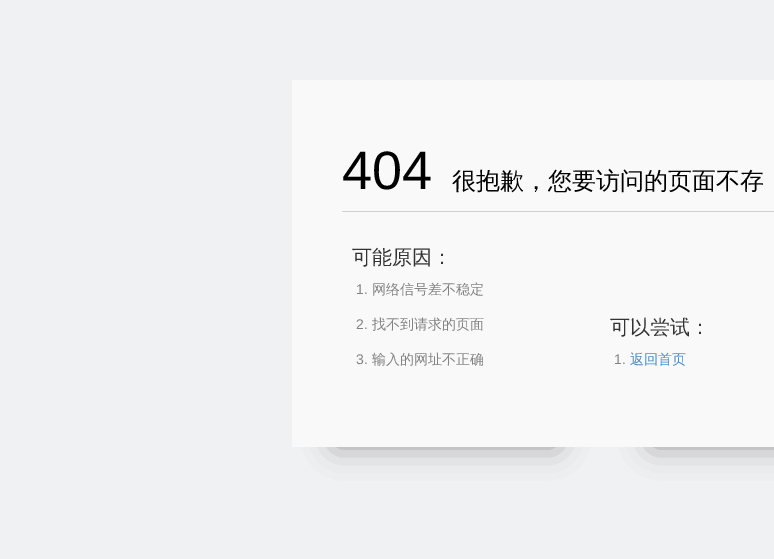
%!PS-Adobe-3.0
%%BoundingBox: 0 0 774 559
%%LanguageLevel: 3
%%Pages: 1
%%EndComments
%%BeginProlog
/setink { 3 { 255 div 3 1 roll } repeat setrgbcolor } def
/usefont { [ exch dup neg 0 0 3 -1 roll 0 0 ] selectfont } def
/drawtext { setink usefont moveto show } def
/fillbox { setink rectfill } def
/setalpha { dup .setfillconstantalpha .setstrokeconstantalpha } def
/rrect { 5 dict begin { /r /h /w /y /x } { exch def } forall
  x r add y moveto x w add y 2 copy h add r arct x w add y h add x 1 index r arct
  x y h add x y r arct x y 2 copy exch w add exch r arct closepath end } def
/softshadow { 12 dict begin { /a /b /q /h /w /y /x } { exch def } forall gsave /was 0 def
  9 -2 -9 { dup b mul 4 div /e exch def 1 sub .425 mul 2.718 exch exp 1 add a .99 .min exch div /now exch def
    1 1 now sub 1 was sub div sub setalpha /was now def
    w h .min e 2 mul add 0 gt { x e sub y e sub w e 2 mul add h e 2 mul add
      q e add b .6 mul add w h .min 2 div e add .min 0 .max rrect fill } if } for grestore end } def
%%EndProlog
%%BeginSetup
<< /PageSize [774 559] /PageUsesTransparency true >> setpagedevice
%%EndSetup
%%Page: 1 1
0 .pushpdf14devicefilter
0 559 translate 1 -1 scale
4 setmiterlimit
0 0 774 559 240 241 243 fillbox
153 153 153 setink
335 414 222 32 0 15.5 1 softshadow
652 414 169 32 0 15.5 1 softshadow
292 80 482 367 249 249 249 fillbox
342 211 432 1 208 208 208 fillbox
(404) 342 189 /LiberationSans-Regular 54 0 0 0 drawtext
(很抱歉，您要访问的页面不存) 452 189 /WenQuanYiZenHei-Medium 24 0 0 0 drawtext
(可能原因：) 352 264 /WenQuanYiZenHei-Medium 20 51 51 51 drawtext
(1.) 356 294 /LiberationSans-Regular 14 131 131 131 drawtext
(网络信号差不稳定) 372 294 /WenQuanYiZenHei-Medium 14 131 131 131 drawtext
(2.) 356 329 /LiberationSans-Regular 14 131 131 131 drawtext
(找不到请求的页面) 372 329 /WenQuanYiZenHei-Medium 14 131 131 131 drawtext
(3.) 356 364 /LiberationSans-Regular 14 131 131 131 drawtext
(输入的网址不正确) 372 364 /WenQuanYiZenHei-Medium 14 131 131 131 drawtext
(可以尝试：) 610 334 /WenQuanYiZenHei-Medium 20 51 51 51 drawtext
(1.) 614 364 /LiberationSans-Regular 14 131 131 131 drawtext
(返回首页) 630 364 /WenQuanYiZenHei-Medium 14 66 139 202 drawtext
.poppdf14devicefilter showpage
%%EOF
